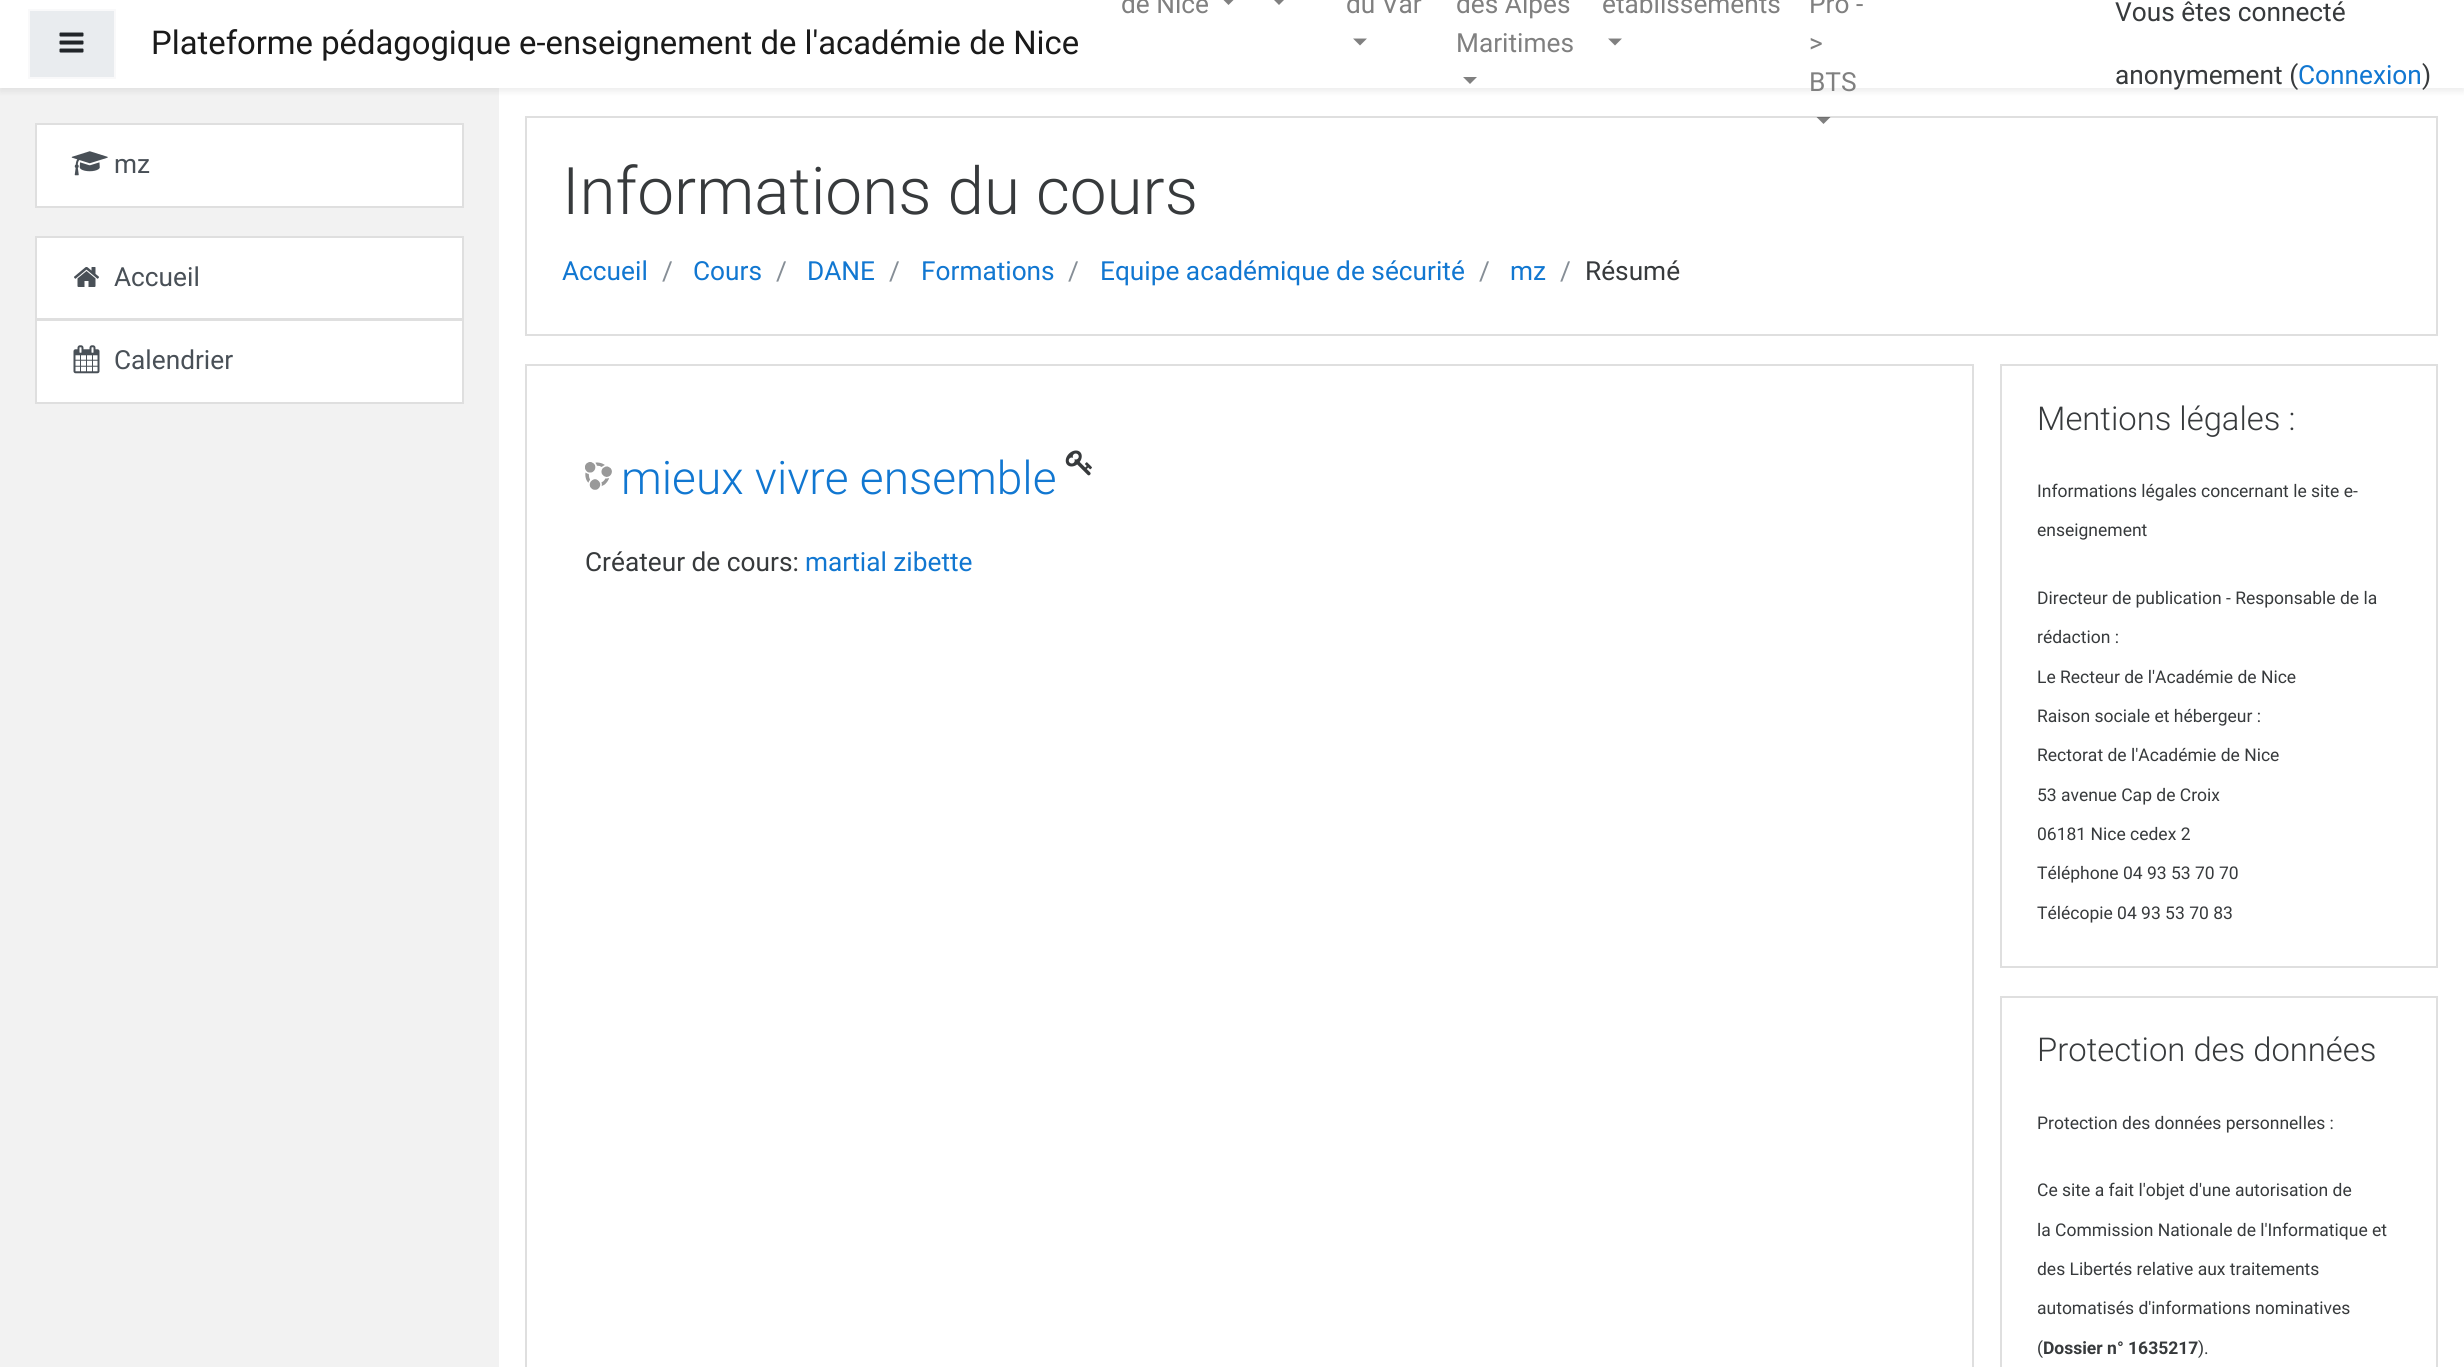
#include <cairo.h>
#include <math.h>
#include <stddef.h>


static void round_rect(cairo_t *cr, double x, double y, double w, double h, double r) {
    cairo_new_sub_path(cr);
    cairo_arc(cr, x + w - r, y + h - r, r, 0, M_PI / 2);
    cairo_arc(cr, x + r, y + h - r, r, M_PI / 2, M_PI);
    cairo_arc(cr, x + r, y + r, r, M_PI, 1.5 * M_PI);
    cairo_arc(cr, x + w - r, y + r, r, 1.5 * M_PI, 2 * M_PI);
    cairo_close_path(cr);
}

static void shadow(cairo_t *cr, double x, double y, double w, double h, double r, double blur, double alpha) {
    cairo_push_group_with_content(cr, CAIRO_CONTENT_ALPHA);
    cairo_set_operator(cr, CAIRO_OPERATOR_SOURCE);
    for (int i = 15; i >= -15 && fmin(w, h) + blur * i / 3 > 0; i -= 2) {
        double e = blur * i / 6;
        cairo_set_source_rgba(cr, 0, 0, 0, alpha * erfc((i - 1) / 8.5) / 2);
        round_rect(cr, x - e, y - e, w + 2 * e, h + 2 * e, fmax(0, fmin(r + e + blur * .6, fmin(w, h) / 2 + e)));
        cairo_fill(cr);
    }
    cairo_pattern_t *soft = cairo_pop_group(cr);
    cairo_mask(cr, soft);
    cairo_pattern_destroy(soft);
}

static void picture(cairo_t *cr, const char *path, double x, double y, double w, double h) {
    cairo_surface_t *image = cairo_image_surface_create_from_png(path);
    cairo_save(cr);
    cairo_set_source_surface(cr, image, x, y);
    cairo_rectangle(cr, x, y, w, h);
    cairo_fill(cr);
    cairo_restore(cr);
    cairo_surface_destroy(image);
}

int main(void) {
    cairo_surface_t *surface = cairo_image_surface_create(CAIRO_FORMAT_RGB24, 2464, 1367);
    cairo_t *cr = cairo_create(surface);
    cairo_font_options_t *options = cairo_font_options_create();
    cairo_font_options_set_hint_metrics(options, CAIRO_HINT_METRICS_OFF);
    cairo_font_options_set_hint_style(options, CAIRO_HINT_STYLE_NONE);
    cairo_set_font_options(cr, options);
    cairo_set_miter_limit(cr, 4);
    cairo_set_source_rgb(cr, 1, 1, 1);
    cairo_paint(cr);
    cairo_set_source_rgb(cr, 0.949, 0.949, 0.949);
    cairo_rectangle(cr, 0, 88, 499, 1279);
    cairo_fill(cr);
    cairo_set_source_rgb(cr, 0, 0, 0);
    shadow(cr, 0, 4, 2464, 87, 0, 3.5, 0.08);
    cairo_set_source_rgb(cr, 1, 1, 1);
    cairo_rectangle(cr, 0, 0, 2464, 88);
    cairo_fill(cr);
    cairo_set_source_rgb(cr, 0.914, 0.925, 0.937);
    cairo_rectangle(cr, 29, 10, 86, 68);
    cairo_fill_preserve(cr);
    cairo_set_source_rgb(cr, 0.973, 0.976, 0.98);
    cairo_stroke(cr);
    picture(cr, "img1.png", 59, 32, 25, 21);
    cairo_select_font_face(cr, "Roboto", CAIRO_FONT_SLANT_NORMAL, CAIRO_FONT_WEIGHT_NORMAL);
    cairo_set_font_size(cr, 32.8);
    cairo_set_source_rgb(cr, 0.102, 0.102, 0.102);
    cairo_move_to(cr, 151, 54);
    cairo_show_text(cr, "Plateforme pédagogique e-enseignement de l'académie de Nice");
    cairo_set_font_size(cr, 26.25);
    cairo_set_source_rgb(cr, 0.502, 0.502, 0.502);
    cairo_move_to(cr, 1121, 13);
    cairo_show_text(cr, "de Nice");
    cairo_new_path(cr);
    cairo_move_to(cr, 1221.5, -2);
    cairo_line_to(cr, 1235.5, -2);
    cairo_line_to(cr, 1228.5, 5);
    cairo_close_path(cr);
    cairo_move_to(cr, 1272, -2);
    cairo_line_to(cr, 1286, -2);
    cairo_line_to(cr, 1279, 5);
    cairo_close_path(cr);
    cairo_fill(cr);
    cairo_move_to(cr, 1346, 13);
    cairo_show_text(cr, "du Var");
    cairo_new_path(cr);
    cairo_move_to(cr, 1353, 38.5);
    cairo_line_to(cr, 1367, 38.5);
    cairo_line_to(cr, 1360, 45.5);
    cairo_close_path(cr);
    cairo_fill(cr);
    cairo_move_to(cr, 1456, 13);
    cairo_show_text(cr, "des Alpes");
    cairo_move_to(cr, 1456, 52);
    cairo_show_text(cr, "Maritimes");
    cairo_new_path(cr);
    cairo_move_to(cr, 1463, 77);
    cairo_line_to(cr, 1477, 77);
    cairo_line_to(cr, 1470, 84);
    cairo_close_path(cr);
    cairo_fill(cr);
    cairo_move_to(cr, 1602, 13);
    cairo_show_text(cr, "établissements");
    cairo_new_path(cr);
    cairo_move_to(cr, 1608, 38.5);
    cairo_line_to(cr, 1622, 38.5);
    cairo_line_to(cr, 1615, 45.5);
    cairo_close_path(cr);
    cairo_fill(cr);
    cairo_move_to(cr, 1809, 13);
    cairo_show_text(cr, "Pro -");
    cairo_move_to(cr, 1809, 52);
    cairo_show_text(cr, ">");
    cairo_move_to(cr, 1809, 91);
    cairo_show_text(cr, "BTS");
    cairo_rectangle(cr, 526, 117, 1911, 218);
    cairo_set_source_rgb(cr, 0.875, 0.875, 0.875);
    cairo_stroke(cr);
    cairo_set_source_rgba(cr, 0, 0, 0, 0.5);
    cairo_new_path(cr);
    cairo_move_to(cr, 1816.5, 117);
    cairo_line_to(cr, 1830.5, 117);
    cairo_line_to(cr, 1823.5, 124);
    cairo_close_path(cr);
    cairo_fill(cr);
    cairo_set_source_rgb(cr, 0.216, 0.227, 0.235);
    cairo_move_to(cr, 2115, 21);
    cairo_show_text(cr, "Vous êtes connecté");
    cairo_move_to(cr, 2115, 84);
    cairo_show_text(cr, "anonymement (");
    cairo_set_source_rgb(cr, 0.067, 0.467, 0.82);
    cairo_move_to(cr, 2298, 84);
    cairo_show_text(cr, "Connexion");
    cairo_set_source_rgb(cr, 0.216, 0.227, 0.235);
    cairo_move_to(cr, 2422, 84);
    cairo_show_text(cr, ")");
    cairo_set_source_rgb(cr, 1, 1, 1);
    cairo_rectangle(cr, 36, 124, 427, 83);
    cairo_fill_preserve(cr);
    cairo_set_source_rgb(cr, 0.875, 0.875, 0.875);
    cairo_stroke(cr);
    picture(cr, "img2.png", 71, 151, 37, 25);
    cairo_set_source_rgb(cr, 0.286, 0.314, 0.341);
    cairo_move_to(cr, 114, 173);
    cairo_show_text(cr, "mz");
    cairo_set_source_rgb(cr, 1, 1, 1);
    cairo_rectangle(cr, 36, 237, 427, 82);
    cairo_fill_preserve(cr);
    cairo_set_source_rgb(cr, 0.875, 0.875, 0.875);
    cairo_stroke(cr);
    picture(cr, "img3.png", 74, 267, 25, 20);
    cairo_set_source_rgb(cr, 0.286, 0.314, 0.341);
    cairo_move_to(cr, 114, 286);
    cairo_show_text(cr, "Accueil");
    cairo_set_source_rgb(cr, 1, 1, 1);
    cairo_rectangle(cr, 36, 320, 427, 83);
    cairo_fill_preserve(cr);
    cairo_set_source_rgb(cr, 0.875, 0.875, 0.875);
    cairo_stroke(cr);
    picture(cr, "img4.png", 73, 345, 27, 29);
    cairo_set_source_rgb(cr, 0.286, 0.314, 0.341);
    cairo_move_to(cr, 114, 369);
    cairo_show_text(cr, "Calendrier");
    cairo_select_font_face(cr, "Roboto Light", CAIRO_FONT_SLANT_NORMAL, CAIRO_FONT_WEIGHT_NORMAL);
    cairo_set_font_size(cr, 65.6);
    cairo_set_source_rgb(cr, 0.216, 0.227, 0.235);
    cairo_move_to(cr, 562, 214);
    cairo_show_text(cr, "Informations du cours");
    cairo_select_font_face(cr, "Roboto", CAIRO_FONT_SLANT_NORMAL, CAIRO_FONT_WEIGHT_NORMAL);
    cairo_set_font_size(cr, 26.25);
    cairo_set_source_rgb(cr, 0.067, 0.467, 0.82);
    cairo_move_to(cr, 562, 280);
    cairo_show_text(cr, "Accueil");
    cairo_set_source_rgb(cr, 0.525, 0.557, 0.588);
    cairo_move_to(cr, 662, 280);
    cairo_show_text(cr, "/");
    cairo_set_source_rgb(cr, 0.067, 0.467, 0.82);
    cairo_move_to(cr, 693, 280);
    cairo_show_text(cr, "Cours");
    cairo_set_source_rgb(cr, 0.525, 0.557, 0.588);
    cairo_move_to(cr, 776, 280);
    cairo_show_text(cr, "/");
    cairo_set_source_rgb(cr, 0.067, 0.467, 0.82);
    cairo_move_to(cr, 807, 280);
    cairo_show_text(cr, "DANE");
    cairo_set_source_rgb(cr, 0.525, 0.557, 0.588);
    cairo_move_to(cr, 889, 280);
    cairo_show_text(cr, "/");
    cairo_set_source_rgb(cr, 0.067, 0.467, 0.82);
    cairo_move_to(cr, 921, 280);
    cairo_show_text(cr, "Formations");
    cairo_set_source_rgb(cr, 0.525, 0.557, 0.588);
    cairo_move_to(cr, 1068, 280);
    cairo_show_text(cr, "/");
    cairo_set_source_rgb(cr, 0.067, 0.467, 0.82);
    cairo_move_to(cr, 1100, 280);
    cairo_show_text(cr, "Equipe académique de sécurité");
    cairo_set_source_rgb(cr, 0.525, 0.557, 0.588);
    cairo_move_to(cr, 1479, 280);
    cairo_show_text(cr, "/");
    cairo_set_source_rgb(cr, 0.067, 0.467, 0.82);
    cairo_move_to(cr, 1510, 280);
    cairo_show_text(cr, "mz");
    cairo_set_source_rgb(cr, 0.525, 0.557, 0.588);
    cairo_move_to(cr, 1560, 280);
    cairo_show_text(cr, "/");
    cairo_set_source_rgb(cr, 0.216, 0.227, 0.235);
    cairo_move_to(cr, 1585, 280);
    cairo_show_text(cr, "Résumé");
    cairo_rectangle(cr, 526, 365, 1447, 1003);
    cairo_set_source_rgb(cr, 0.875, 0.875, 0.875);
    cairo_stroke(cr);
    picture(cr, "img5.png", 585, 462, 27, 28);
    cairo_select_font_face(cr, "Roboto Light", CAIRO_FONT_SLANT_NORMAL, CAIRO_FONT_WEIGHT_NORMAL);
    cairo_set_font_size(cr, 46);
    cairo_set_source_rgb(cr, 0.067, 0.467, 0.82);
    cairo_move_to(cr, 621, 494);
    cairo_show_text(cr, "mieux vivre ensemble");
    picture(cr, "img6.png", 1065, 450, 27, 26);
    cairo_select_font_face(cr, "Roboto", CAIRO_FONT_SLANT_NORMAL, CAIRO_FONT_WEIGHT_NORMAL);
    cairo_set_font_size(cr, 26.25);
    cairo_set_source_rgb(cr, 0.216, 0.227, 0.235);
    cairo_move_to(cr, 585, 571);
    cairo_show_text(cr, "Créateur de cours:");
    cairo_set_source_rgb(cr, 0.067, 0.467, 0.82);
    cairo_move_to(cr, 805, 571);
    cairo_show_text(cr, "martial zibette");
    cairo_rectangle(cr, 2001, 365, 436, 602);
    cairo_set_source_rgb(cr, 0.875, 0.875, 0.875);
    cairo_stroke(cr);
    cairo_select_font_face(cr, "Roboto Light", CAIRO_FONT_SLANT_NORMAL, CAIRO_FONT_WEIGHT_NORMAL);
    cairo_set_font_size(cr, 32.8);
    cairo_set_source_rgb(cr, 0.216, 0.227, 0.235);
    cairo_move_to(cr, 2037, 430);
    cairo_show_text(cr, "Mentions légales :");
    cairo_select_font_face(cr, "Roboto", CAIRO_FONT_SLANT_NORMAL, CAIRO_FONT_WEIGHT_NORMAL);
    cairo_set_font_size(cr, 17.5);
    cairo_move_to(cr, 2037, 497);
    cairo_show_text(cr, "Informations légales concernant le site e-");
    cairo_move_to(cr, 2037, 536);
    cairo_show_text(cr, "enseignement");
    cairo_move_to(cr, 2037, 604);
    cairo_show_text(cr, "Directeur de publication - Responsable de la");
    cairo_move_to(cr, 2037, 643);
    cairo_show_text(cr, "rédaction :");
    cairo_move_to(cr, 2037, 683);
    cairo_show_text(cr, "Le Recteur de l'Académie de Nice");
    cairo_move_to(cr, 2037, 722);
    cairo_show_text(cr, "Raison sociale et hébergeur :");
    cairo_move_to(cr, 2037, 761);
    cairo_show_text(cr, "Rectorat de l'Académie de Nice");
    cairo_move_to(cr, 2037, 801);
    cairo_show_text(cr, "53 avenue Cap de Croix");
    cairo_move_to(cr, 2037, 840);
    cairo_show_text(cr, "06181 Nice cedex 2");
    cairo_move_to(cr, 2037, 879);
    cairo_show_text(cr, "Téléphone 04 93 53 70 70");
    cairo_move_to(cr, 2037, 919);
    cairo_show_text(cr, "Télécopie 04 93 53 70 83");
    cairo_rectangle(cr, 2001, 997, 436, 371);
    cairo_set_source_rgb(cr, 0.875, 0.875, 0.875);
    cairo_stroke(cr);
    cairo_select_font_face(cr, "Roboto Light", CAIRO_FONT_SLANT_NORMAL, CAIRO_FONT_WEIGHT_NORMAL);
    cairo_set_font_size(cr, 32.8);
    cairo_set_source_rgb(cr, 0.216, 0.227, 0.235);
    cairo_move_to(cr, 2037, 1061);
    cairo_show_text(cr, "Protection des données");
    cairo_select_font_face(cr, "Roboto", CAIRO_FONT_SLANT_NORMAL, CAIRO_FONT_WEIGHT_NORMAL);
    cairo_set_font_size(cr, 17.5);
    cairo_move_to(cr, 2037, 1129);
    cairo_show_text(cr, "Protection des données personnelles :");
    cairo_move_to(cr, 2037, 1196);
    cairo_show_text(cr, "Ce site a fait l'objet d'une autorisation de");
    cairo_move_to(cr, 2037, 1236);
    cairo_show_text(cr, "la Commission Nationale de l'Informatique et");
    cairo_move_to(cr, 2037, 1275);
    cairo_show_text(cr, "des Libertés relative aux traitements");
    cairo_move_to(cr, 2037, 1314);
    cairo_show_text(cr, "automatisés d'informations nominatives");
    cairo_move_to(cr, 2037, 1354);
    cairo_show_text(cr, "(");
    cairo_select_font_face(cr, "Roboto", CAIRO_FONT_SLANT_NORMAL, CAIRO_FONT_WEIGHT_BOLD);
    cairo_move_to(cr, 2043, 1354);
    cairo_show_text(cr, "Dossier n° 1635217");
    cairo_select_font_face(cr, "Roboto", CAIRO_FONT_SLANT_NORMAL, CAIRO_FONT_WEIGHT_NORMAL);
    cairo_move_to(cr, 2198, 1354);
    cairo_show_text(cr, ").");
    cairo_surface_write_to_png(surface, "page.png");
    cairo_font_options_destroy(options);
    cairo_destroy(cr);
    cairo_surface_destroy(surface);
    return 0;
}
